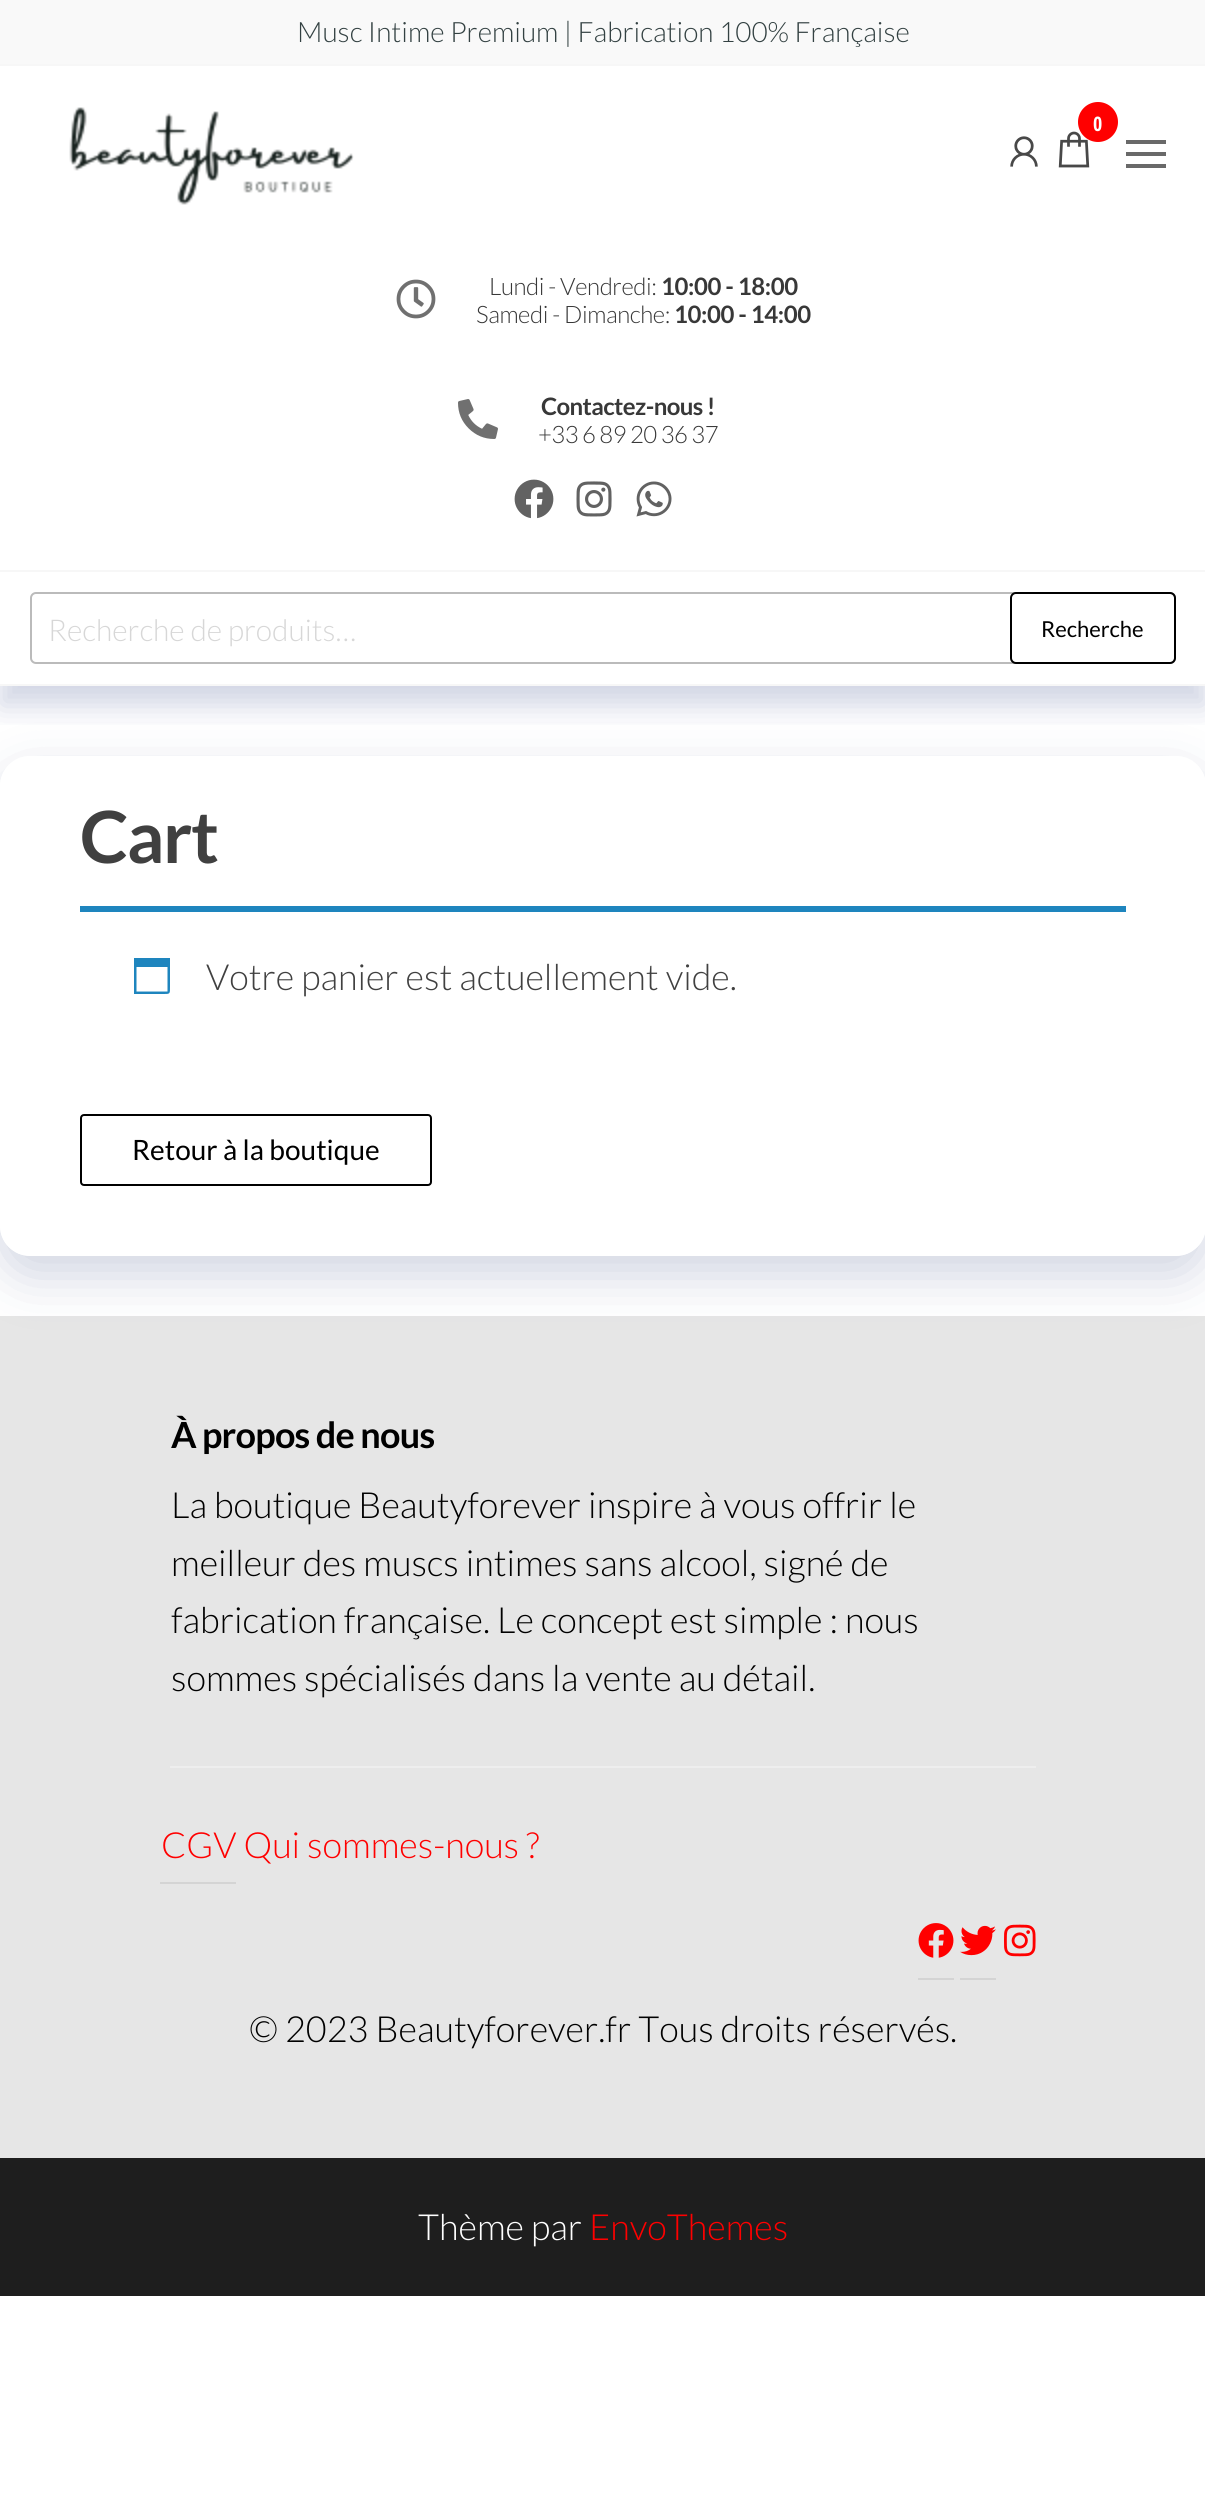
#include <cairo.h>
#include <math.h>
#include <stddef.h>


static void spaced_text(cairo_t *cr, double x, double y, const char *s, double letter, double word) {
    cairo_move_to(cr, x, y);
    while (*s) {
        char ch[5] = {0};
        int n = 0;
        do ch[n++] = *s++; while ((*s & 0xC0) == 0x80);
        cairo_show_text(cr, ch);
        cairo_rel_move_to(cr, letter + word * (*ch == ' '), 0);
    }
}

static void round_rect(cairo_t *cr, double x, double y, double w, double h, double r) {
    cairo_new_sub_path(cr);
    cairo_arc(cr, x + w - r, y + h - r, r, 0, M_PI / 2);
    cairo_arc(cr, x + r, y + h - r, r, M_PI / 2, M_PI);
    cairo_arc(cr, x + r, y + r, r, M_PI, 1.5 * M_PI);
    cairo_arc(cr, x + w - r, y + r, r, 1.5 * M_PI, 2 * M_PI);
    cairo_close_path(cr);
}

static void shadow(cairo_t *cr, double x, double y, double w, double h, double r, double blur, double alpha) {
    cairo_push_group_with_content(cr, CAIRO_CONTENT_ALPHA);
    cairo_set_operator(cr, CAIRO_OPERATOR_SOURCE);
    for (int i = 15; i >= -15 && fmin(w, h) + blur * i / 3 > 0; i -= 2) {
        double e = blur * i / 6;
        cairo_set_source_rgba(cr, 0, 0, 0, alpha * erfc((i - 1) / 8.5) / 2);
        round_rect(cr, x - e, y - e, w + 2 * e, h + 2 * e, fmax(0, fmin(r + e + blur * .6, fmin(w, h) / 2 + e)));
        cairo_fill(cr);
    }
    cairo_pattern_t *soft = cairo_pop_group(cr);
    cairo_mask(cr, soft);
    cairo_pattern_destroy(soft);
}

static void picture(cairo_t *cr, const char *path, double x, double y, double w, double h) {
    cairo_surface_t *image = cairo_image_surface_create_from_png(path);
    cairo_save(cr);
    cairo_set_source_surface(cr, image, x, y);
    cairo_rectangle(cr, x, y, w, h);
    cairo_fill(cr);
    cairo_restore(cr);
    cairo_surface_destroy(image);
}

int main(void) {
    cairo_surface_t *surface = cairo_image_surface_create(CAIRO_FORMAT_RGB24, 1205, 2495);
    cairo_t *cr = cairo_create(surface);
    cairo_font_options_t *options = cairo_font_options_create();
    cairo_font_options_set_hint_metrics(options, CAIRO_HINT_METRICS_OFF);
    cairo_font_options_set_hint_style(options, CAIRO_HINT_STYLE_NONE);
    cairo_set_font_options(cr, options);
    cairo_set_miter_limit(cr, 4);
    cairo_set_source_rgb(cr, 1, 1, 1);
    cairo_paint(cr);
    cairo_set_source_rgb(cr, 0.976, 0.976, 0.976);
    cairo_rectangle(cr, 0, 0, 1205, 64);
    cairo_fill(cr);
    cairo_set_source_rgb(cr, 0.965, 0.965, 0.965);
    cairo_rectangle(cr, 0, 64, 1205, 2);
    cairo_fill(cr);
    cairo_select_font_face(cr, "Lato Light", CAIRO_FONT_SLANT_NORMAL, CAIRO_FONT_WEIGHT_NORMAL);
    cairo_set_font_size(cr, 28);
    cairo_set_source_rgb(cr, 0.2, 0.255, 0.259);
    cairo_move_to(cr, 297, 42);
    cairo_show_text(cr, "Musc Intime Premium | Fabrication 100% Française");
    cairo_set_source_rgb(cr, 0.965, 0.965, 0.965);
    cairo_rectangle(cr, 0, 570, 1205, 2);
    cairo_fill(cr);
    picture(cr, "img1.png", 69, 107, 285, 98);
    picture(cr, "img2.png", 1058, 131, 32, 37);
    cairo_set_source_rgb(cr, 1, 0, 0);
    cairo_arc(cr, 1098, 122, 20, 0, 2 * M_PI);
    cairo_fill(cr);
    cairo_select_font_face(cr, "Open Sans Condensed", CAIRO_FONT_SLANT_NORMAL, CAIRO_FONT_WEIGHT_BOLD);
    cairo_set_font_size(cr, 20);
    cairo_set_source_rgb(cr, 1, 1, 1);
    cairo_move_to(cr, 1093, 131);
    cairo_show_text(cr, "0");
    picture(cr, "img3.png", 1010, 136, 28, 31);
    cairo_set_source_rgb(cr, 0.412, 0.412, 0.412);
    cairo_rectangle(cr, 1126, 152, 40, 4);
    cairo_fill(cr);
    cairo_rectangle(cr, 1126, 140, 40, 4);
    cairo_fill(cr);
    cairo_rectangle(cr, 1126, 164, 40, 4);
    cairo_fill(cr);
    picture(cr, "img4.png", 396, 279, 40, 40);
    cairo_select_font_face(cr, "Lato Light", CAIRO_FONT_SLANT_NORMAL, CAIRO_FONT_WEIGHT_NORMAL);
    cairo_set_font_size(cr, 24);
    cairo_set_source_rgb(cr, 0.22, 0.22, 0.22);
    spaced_text(cr, 489, 295, "Lundi - Vendredi:", -0.4, 0);
    cairo_select_font_face(cr, "Lato", CAIRO_FONT_SLANT_NORMAL, CAIRO_FONT_WEIGHT_BOLD);
    spaced_text(cr, 661, 295, "10:00 - 18:00", -0.4, 0);
    cairo_select_font_face(cr, "Lato Light", CAIRO_FONT_SLANT_NORMAL, CAIRO_FONT_WEIGHT_NORMAL);
    spaced_text(cr, 476, 323, "Samedi - Dimanche:", -0.4, 0);
    cairo_select_font_face(cr, "Lato", CAIRO_FONT_SLANT_NORMAL, CAIRO_FONT_WEIGHT_BOLD);
    spaced_text(cr, 674, 323, "10:00 - 14:00", -0.4, 0);
    picture(cr, "img5.png", 458, 399, 40, 40);
    spaced_text(cr, 541, 415, "Contactez-nous !", -0.6, 0);
    cairo_select_font_face(cr, "Lato Light", CAIRO_FONT_SLANT_NORMAL, CAIRO_FONT_WEIGHT_NORMAL);
    spaced_text(cr, 538, 443, "+33 6 89 20 36 37", -0.6, 0);
    picture(cr, "img6.png", 514, 479, 40, 40);
    picture(cr, "img7.png", 576, 481, 36, 36);
    picture(cr, "img8.png", 636, 481, 36, 36);
    cairo_save(cr);
    cairo_rectangle(cr, 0, 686, 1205, 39);
    cairo_clip(cr);
    cairo_set_source_rgb(cr, 0.098, 0.176, 0.471);
    shadow(cr, 0, 592, 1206, 114, 0, 15, 0.2);
    cairo_restore(cr);
    cairo_set_source_rgb(cr, 0.965, 0.965, 0.965);
    cairo_rectangle(cr, 0, 684, 1205, 2);
    cairo_fill(cr);
    round_rect(cr, 31, 593, 1144, 70, 5);
    cairo_set_source_rgb(cr, 0.733, 0.733, 0.733);
    cairo_stroke(cr);
    cairo_set_font_size(cr, 30);
    cairo_set_source_rgb(cr, 0.843, 0.843, 0.843);
    cairo_move_to(cr, 48, 641);
    cairo_show_text(cr, "Recherche de produits…");
    round_rect(cr, 1011, 593, 164, 70, 5);
    cairo_set_source_rgb(cr, 0, 0, 0);
    cairo_stroke(cr);
    cairo_select_font_face(cr, "Lato", CAIRO_FONT_SLANT_NORMAL, CAIRO_FONT_WEIGHT_NORMAL);
    cairo_set_font_size(cr, 22);
    cairo_move_to(cr, 1041, 637);
    cairo_show_text(cr, "Recherche");
    cairo_set_source_rgb(cr, 0.902, 0.902, 0.902);
    cairo_rectangle(cr, 0, 1316, 1205, 842);
    cairo_fill(cr);
    cairo_save(cr);
    cairo_set_fill_rule(cr, CAIRO_FILL_RULE_EVEN_ODD);
    cairo_new_path(cr);
    cairo_move_to(cr, 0, 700);
    cairo_line_to(cr, 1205, 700);
    cairo_line_to(cr, 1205, 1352);
    cairo_line_to(cr, 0, 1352);
    cairo_close_path(cr);
    cairo_move_to(cr, 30, 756);
    cairo_line_to(cr, 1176, 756);
    cairo_curve_to(cr, 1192.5, 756, 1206, 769.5, 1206, 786);
    cairo_line_to(cr, 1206, 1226);
    cairo_curve_to(cr, 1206, 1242.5, 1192.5, 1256, 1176, 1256);
    cairo_line_to(cr, 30, 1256);
    cairo_curve_to(cr, 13.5, 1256, 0, 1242.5, 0, 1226);
    cairo_line_to(cr, 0, 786);
    cairo_curve_to(cr, 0, 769.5, 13.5, 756, 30, 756);
    cairo_close_path(cr);
    cairo_clip(cr);
    cairo_set_source_rgb(cr, 0.098, 0.176, 0.431);
    shadow(cr, 0, 776, 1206, 500, 30, 25, 0.2);
    cairo_restore(cr);
    cairo_select_font_face(cr, "Lato", CAIRO_FONT_SLANT_NORMAL, CAIRO_FONT_WEIGHT_BOLD);
    cairo_set_font_size(cr, 72);
    cairo_set_source_rgb(cr, 0.251, 0.251, 0.251);
    spaced_text(cr, 80, 863, "Cart", -1.5, 0);
    cairo_set_source_rgb(cr, 0.118, 0.522, 0.745);
    cairo_rectangle(cr, 80, 906, 1046, 6);
    cairo_fill(cr);
    cairo_new_path(cr);
    cairo_move_to(cr, 167.5, 967);
    cairo_line_to(cr, 136.5, 967);
    cairo_line_to(cr, 136.5, 991.5);
    cairo_line_to(cr, 167.5, 991.5);
    cairo_close_path(cr);
    cairo_move_to(cr, 170, 958);
    cairo_line_to(cr, 170, 986);
    cairo_curve_to(cr, 170, 994.5, 170.5, 994, 162, 994);
    cairo_line_to(cr, 134, 994);
    cairo_line_to(cr, 134, 958);
    cairo_close_path(cr);
    cairo_fill(cr);
    cairo_select_font_face(cr, "Lato Light", CAIRO_FONT_SLANT_NORMAL, CAIRO_FONT_WEIGHT_NORMAL);
    cairo_set_font_size(cr, 36);
    cairo_set_source_rgb(cr, 0.251, 0.251, 0.251);
    cairo_move_to(cr, 206, 990);
    cairo_show_text(cr, "Votre panier est actuellement vide.");
    round_rect(cr, 81, 1115, 350, 70, 3);
    cairo_set_source_rgb(cr, 0, 0, 0);
    cairo_stroke(cr);
    cairo_select_font_face(cr, "Lato", CAIRO_FONT_SLANT_NORMAL, CAIRO_FONT_WEIGHT_NORMAL);
    cairo_set_font_size(cr, 28);
    cairo_move_to(cr, 132, 1160);
    cairo_show_text(cr, "Retour à la boutique");
    cairo_select_font_face(cr, "Lato", CAIRO_FONT_SLANT_NORMAL, CAIRO_FONT_WEIGHT_BOLD);
    cairo_set_font_size(cr, 36);
    spaced_text(cr, 171, 1448, "À propos de nous", -0.75, 0);
    cairo_select_font_face(cr, "Lato Light", CAIRO_FONT_SLANT_NORMAL, CAIRO_FONT_WEIGHT_NORMAL);
    cairo_move_to(cr, 171, 1518);
    cairo_show_text(cr, "La boutique Beautyforever inspire à vous offrir le");
    cairo_move_to(cr, 171, 1576);
    cairo_show_text(cr, "meilleur des muscs intimes sans alcool, signé de");
    cairo_move_to(cr, 171, 1633);
    cairo_show_text(cr, "fabrication française. Le concept est simple : nous");
    cairo_move_to(cr, 171, 1691);
    cairo_show_text(cr, "sommes spécialisés dans la vente au détail.");
    cairo_set_source_rgb(cr, 0.933, 0.933, 0.933);
    cairo_rectangle(cr, 170, 1766, 866, 2);
    cairo_fill(cr);
    cairo_set_source_rgb(cr, 0.831, 0.831, 0.831);
    cairo_rectangle(cr, 160, 1882, 76, 2);
    cairo_fill(cr);
    cairo_set_source_rgb(cr, 1, 0, 0);
    cairo_move_to(cr, 161, 1858);
    cairo_show_text(cr, "CGV Qui sommes-nous ?");
    cairo_set_source_rgb(cr, 0.831, 0.831, 0.831);
    cairo_rectangle(cr, 918, 1978, 36, 2);
    cairo_fill(cr);
    picture(cr, "img9.png", 918, 1923, 36, 35);
    cairo_rectangle(cr, 960, 1978, 36, 2);
    cairo_fill(cr);
    picture(cr, "img10.png", 960, 1925, 36, 31);
    picture(cr, "img11.png", 1004, 1924, 32, 33);
    cairo_set_source_rgb(cr, 0, 0, 0);
    cairo_move_to(cr, 249, 2042);
    cairo_show_text(cr, "© 2023 Beautyforever.fr Tous droits réservés.");
    cairo_set_source_rgb(cr, 0.118, 0.118, 0.118);
    cairo_rectangle(cr, 0, 2158, 1205, 138);
    cairo_fill(cr);
    cairo_set_source_rgb(cr, 1, 1, 1);
    cairo_move_to(cr, 418, 2240);
    cairo_show_text(cr, "Thème par");
    cairo_set_source_rgb(cr, 1, 0, 0);
    cairo_move_to(cr, 589, 2240);
    cairo_show_text(cr, "EnvoThemes");
    cairo_surface_write_to_png(surface, "page.png");
    cairo_font_options_destroy(options);
    cairo_destroy(cr);
    cairo_surface_destroy(surface);
    return 0;
}
